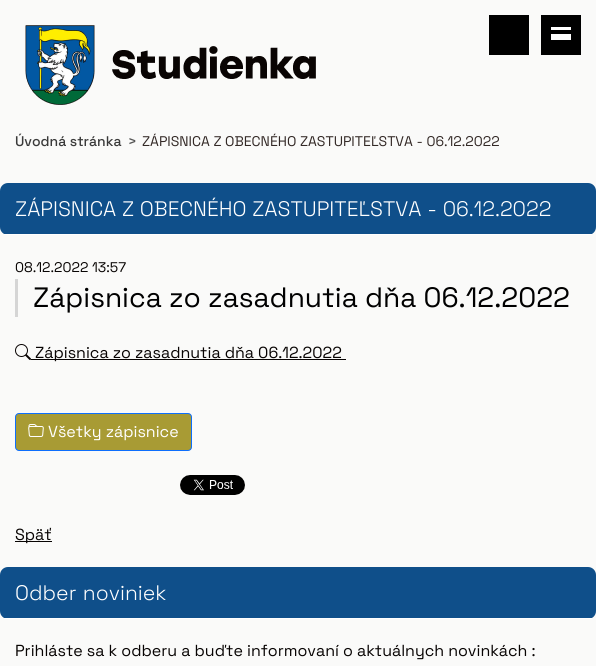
#include <cairo.h>
#include <math.h>
#include <stddef.h>


static void spaced_text(cairo_t *cr, double x, double y, const char *s, double letter, double word) {
    cairo_move_to(cr, x, y);
    while (*s) {
        char ch[5] = {0};
        int n = 0;
        do ch[n++] = *s++; while ((*s & 0xC0) == 0x80);
        cairo_show_text(cr, ch);
        cairo_rel_move_to(cr, letter + word * (*ch == ' '), 0);
    }
}

static void round_rect(cairo_t *cr, double x, double y, double w, double h, double r) {
    cairo_new_sub_path(cr);
    cairo_arc(cr, x + w - r, y + h - r, r, 0, M_PI / 2);
    cairo_arc(cr, x + r, y + h - r, r, M_PI / 2, M_PI);
    cairo_arc(cr, x + r, y + r, r, M_PI, 1.5 * M_PI);
    cairo_arc(cr, x + w - r, y + r, r, 1.5 * M_PI, 2 * M_PI);
    cairo_close_path(cr);
}

static void picture(cairo_t *cr, const char *path, double x, double y, double w, double h) {
    cairo_surface_t *image = cairo_image_surface_create_from_png(path);
    cairo_save(cr);
    cairo_set_source_surface(cr, image, x, y);
    cairo_rectangle(cr, x, y, w, h);
    cairo_fill(cr);
    cairo_restore(cr);
    cairo_surface_destroy(image);
}

int main(void) {
    cairo_surface_t *surface = cairo_image_surface_create(CAIRO_FORMAT_RGB24, 596, 666);
    cairo_t *cr = cairo_create(surface);
    cairo_font_options_t *options = cairo_font_options_create();
    cairo_font_options_set_hint_metrics(options, CAIRO_HINT_METRICS_OFF);
    cairo_font_options_set_hint_style(options, CAIRO_HINT_STYLE_NONE);
    cairo_set_font_options(cr, options);
    cairo_set_miter_limit(cr, 4);
    cairo_set_source_rgb(cr, 0.98, 0.98, 0.976);
    cairo_paint(cr);
    picture(cr, "img1.png", 25, 25, 291, 80);
    cairo_set_source_rgb(cr, 0, 0, 0);
    cairo_rectangle(cr, 489, 15, 40, 40);
    cairo_fill(cr);
    cairo_rectangle(cr, 541, 15, 40, 40);
    cairo_fill(cr);
    cairo_set_source_rgb(cr, 1, 1, 1);
    cairo_rectangle(cr, 551, 27, 20, 3);
    cairo_fill(cr);
    cairo_rectangle(cr, 551, 34, 20, 6);
    cairo_fill(cr);
    cairo_select_font_face(cr, "Space Grotesk Medium", CAIRO_FONT_SLANT_NORMAL, CAIRO_FONT_WEIGHT_NORMAL);
    cairo_set_font_size(cr, 14);
    cairo_set_source_rgb(cr, 0.227, 0.227, 0.227);
    cairo_move_to(cr, 15, 146);
    cairo_show_text(cr, "Úvodná stránka");
    cairo_set_source_rgb(cr, 0.333, 0.333, 0.333);
    cairo_move_to(cr, 128, 146);
    cairo_show_text(cr, ">");
    cairo_select_font_face(cr, "Space Grotesk", CAIRO_FONT_SLANT_NORMAL, CAIRO_FONT_WEIGHT_NORMAL);
    cairo_set_source_rgb(cr, 0.2, 0.161, 0.149);
    cairo_move_to(cr, 142, 146);
    cairo_show_text(cr, "ZÁPISNICA Z OBECNÉHO ZASTUPITEĽSTVA - 06.12.2022");
    cairo_set_source_rgb(cr, 0.059, 0.31, 0.541);
    round_rect(cr, 0, 183, 596, 52, 8);
    cairo_fill(cr);
    cairo_set_source_rgb(cr, 1, 1, 1);
    cairo_rectangle(cr, 4, 234, 588, 1);
    cairo_fill(cr);
    cairo_select_font_face(cr, "Space Grotesk Light", CAIRO_FONT_SLANT_NORMAL, CAIRO_FONT_WEIGHT_NORMAL);
    cairo_set_font_size(cr, 21);
    spaced_text(cr, 15, 216, "ZÁPISNICA Z OBECNÉHO ZASTUPITEĽSTVA - 06.12.2022", 0, 0.25);
    cairo_select_font_face(cr, "Space Grotesk", CAIRO_FONT_SLANT_NORMAL, CAIRO_FONT_WEIGHT_NORMAL);
    cairo_set_font_size(cr, 14);
    cairo_set_source_rgb(cr, 0.035, 0.016, 0.012);
    cairo_move_to(cr, 15, 272);
    cairo_show_text(cr, "08.12.2022 13:57");
    cairo_set_source_rgb(cr, 0.835, 0.835, 0.835);
    cairo_rectangle(cr, 15, 279, 3, 38);
    cairo_fill(cr);
    cairo_set_font_size(cr, 28);
    cairo_set_source_rgb(cr, 0, 0, 0);
    cairo_move_to(cr, 33, 307);
    cairo_show_text(cr, "Zápisnica zo zasadnutia dňa 06.12.2022");
    picture(cr, "img2.png", 15, 344, 16, 16);
    cairo_set_source_rgb(cr, 0.035, 0.016, 0.012);
    cairo_rectangle(cr, 31, 359, 315, 1);
    cairo_fill(cr);
    cairo_set_font_size(cr, 16);
    cairo_move_to(cr, 35, 358);
    cairo_show_text(cr, "Zápisnica zo zasadnutia dňa 06.12.2022");
    cairo_set_source_rgb(cr, 0.659, 0.608, 0.204);
    round_rect(cr, 15.5, 413.5, 176, 37, 3.5);
    cairo_fill_preserve(cr);
    cairo_set_source_rgb(cr, 0.051, 0.431, 0.992);
    cairo_set_line_width(cr, 1);
    cairo_stroke(cr);
    picture(cr, "img3.png", 28, 424, 16, 13);
    cairo_set_source_rgb(cr, 1, 1, 1);
    cairo_move_to(cr, 48, 437);
    cairo_show_text(cr, "Všetky zápisnice");
    picture(cr, "img4.png", 180, 475, 65, 20);
    cairo_set_source_rgb(cr, 0.035, 0.016, 0.012);
    cairo_rectangle(cr, 15, 541, 37, 1);
    cairo_fill(cr);
    cairo_move_to(cr, 15, 540);
    cairo_show_text(cr, "Späť");
    cairo_set_source_rgb(cr, 0.059, 0.31, 0.541);
    round_rect(cr, 0, 567, 596, 52, 8);
    cairo_fill(cr);
    cairo_set_source_rgb(cr, 1, 1, 1);
    cairo_rectangle(cr, 4, 618, 588, 1);
    cairo_fill(cr);
    cairo_select_font_face(cr, "Space Grotesk Light", CAIRO_FONT_SLANT_NORMAL, CAIRO_FONT_WEIGHT_NORMAL);
    cairo_set_font_size(cr, 21);
    spaced_text(cr, 15, 600, "Odber noviniek", 0, 1);
    cairo_select_font_face(cr, "Space Grotesk", CAIRO_FONT_SLANT_NORMAL, CAIRO_FONT_WEIGHT_NORMAL);
    cairo_set_font_size(cr, 16);
    cairo_set_source_rgb(cr, 0.035, 0.016, 0.012);
    cairo_move_to(cr, 15, 656);
    cairo_show_text(cr, "Prihláste sa k odberu a buďte informovaní o aktuálnych novinkách :");
    cairo_surface_write_to_png(surface, "page.png");
    cairo_font_options_destroy(options);
    cairo_destroy(cr);
    cairo_surface_destroy(surface);
    return 0;
}
